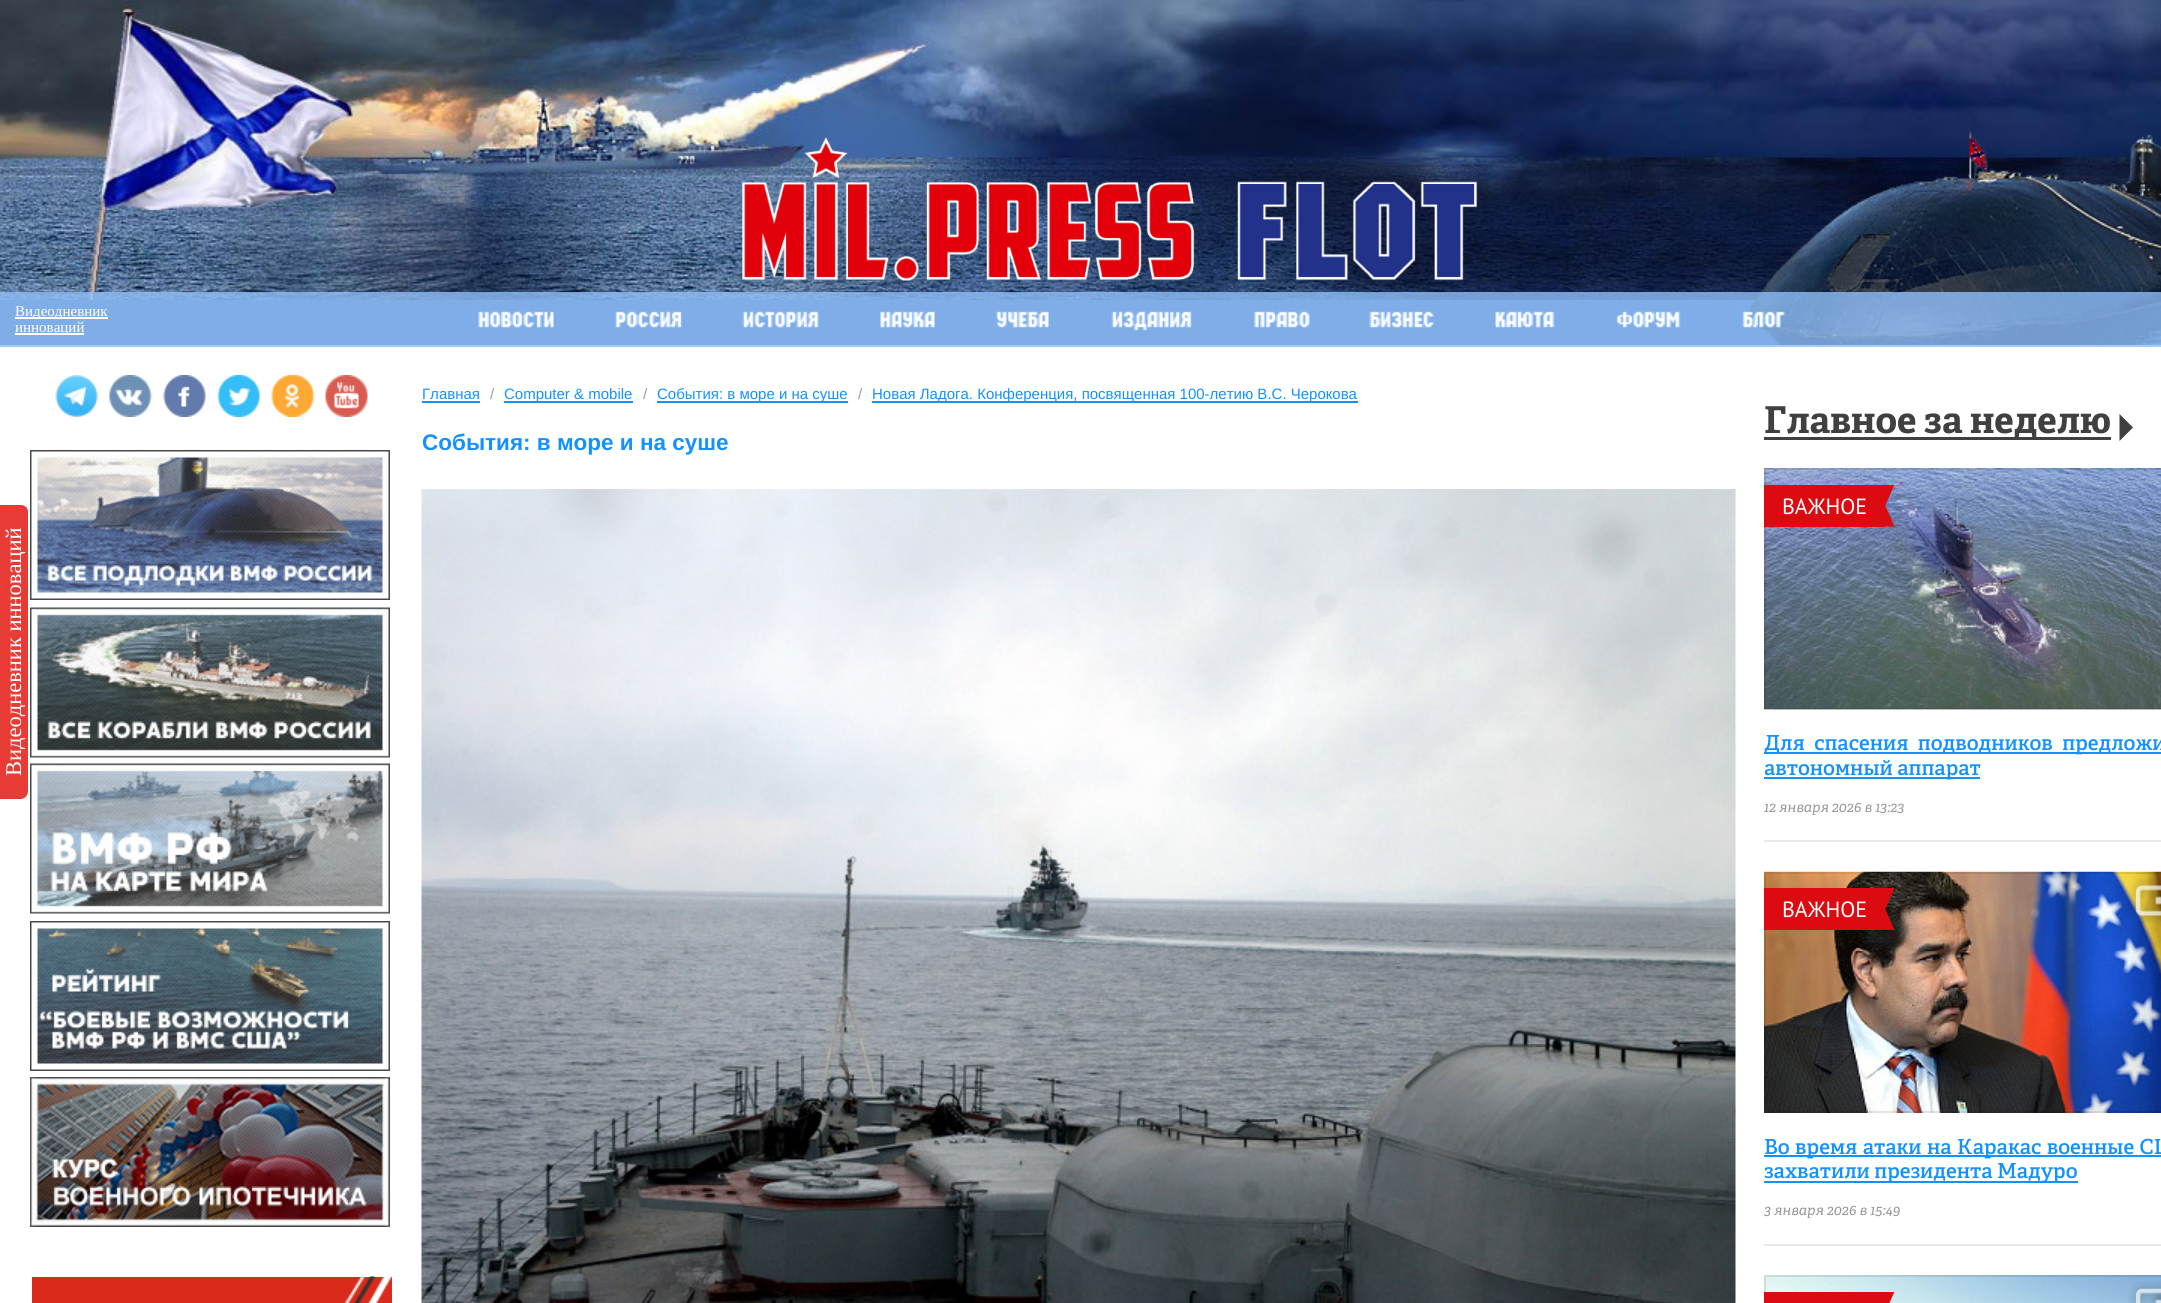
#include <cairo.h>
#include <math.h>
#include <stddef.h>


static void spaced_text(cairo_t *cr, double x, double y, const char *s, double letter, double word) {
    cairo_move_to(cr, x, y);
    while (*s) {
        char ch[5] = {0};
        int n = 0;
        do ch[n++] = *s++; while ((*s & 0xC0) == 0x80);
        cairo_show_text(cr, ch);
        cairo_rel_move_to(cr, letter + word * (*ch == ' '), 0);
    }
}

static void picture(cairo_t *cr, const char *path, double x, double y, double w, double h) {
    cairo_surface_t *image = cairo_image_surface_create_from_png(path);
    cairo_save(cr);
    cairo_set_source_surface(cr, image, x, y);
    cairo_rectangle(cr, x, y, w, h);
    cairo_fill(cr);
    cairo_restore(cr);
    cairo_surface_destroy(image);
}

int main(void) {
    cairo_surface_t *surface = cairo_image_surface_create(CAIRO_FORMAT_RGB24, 2161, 1303);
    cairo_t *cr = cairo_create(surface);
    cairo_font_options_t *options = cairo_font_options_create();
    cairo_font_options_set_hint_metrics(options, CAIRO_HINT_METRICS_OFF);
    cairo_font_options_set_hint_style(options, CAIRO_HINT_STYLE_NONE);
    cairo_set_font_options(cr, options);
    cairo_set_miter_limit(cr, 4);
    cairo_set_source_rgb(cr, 1, 1, 1);
    cairo_paint(cr);
    cairo_set_source_rgb(cr, 0.255, 0.412, 0.651);
    cairo_rectangle(cr, 0, 300, 1778, 45);
    cairo_fill(cr);
    picture(cr, "img1.png", 0, 0, 2161, 300);
    picture(cr, "img2.png", 1747, 130, 414, 215);
    picture(cr, "img3.png", 741, 137, 737, 144);
    cairo_set_source_rgba(cr, 0.557, 0.745, 0.973, 0.8);
    cairo_rectangle(cr, 0, 292, 2161, 55);
    cairo_fill(cr);
    cairo_set_source_rgb(cr, 1, 1, 1);
    cairo_rectangle(cr, 15, 317, 93, 2);
    cairo_fill(cr);
    cairo_select_font_face(cr, "Liberation Serif", CAIRO_FONT_SLANT_NORMAL, CAIRO_FONT_WEIGHT_NORMAL);
    cairo_set_font_size(cr, 15);
    cairo_move_to(cr, 15, 316);
    cairo_show_text(cr, "Видеодневник");
    cairo_rectangle(cr, 15, 333, 69, 2);
    cairo_fill(cr);
    cairo_move_to(cr, 15, 332);
    cairo_show_text(cr, "инноваций");
    picture(cr, "img4.png", 478, 311, 76, 17);
    picture(cr, "img5.png", 615, 311, 67, 17);
    picture(cr, "img6.png", 742, 311, 77, 17);
    picture(cr, "img7.png", 880, 311, 55, 17);
    picture(cr, "img8.png", 996, 311, 53, 17);
    picture(cr, "img9.png", 1111, 311, 81, 20);
    picture(cr, "img10.png", 1254, 311, 56, 17);
    picture(cr, "img11.png", 1369, 311, 65, 17);
    picture(cr, "img12.png", 1495, 311, 60, 17);
    picture(cr, "img13.png", 1616, 311, 65, 17);
    picture(cr, "img14.png", 1742, 311, 44, 17);
    picture(cr, "img15.png", 55, 375, 43, 42);
    picture(cr, "img16.png", 109, 375, 43, 42);
    picture(cr, "img17.png", 163, 375, 43, 42);
    picture(cr, "img18.png", 217, 375, 43, 42);
    picture(cr, "img19.png", 271, 375, 43, 42);
    picture(cr, "img20.png", 325, 375, 43, 42);
    picture(cr, "img21.png", 30, 450, 360, 150);
    picture(cr, "img22.png", 30, 607, 360, 151);
    picture(cr, "img23.png", 30, 763, 360, 151);
    picture(cr, "img24.png", 30, 921, 360, 150);
    picture(cr, "img25.png", 30, 1077, 360, 150);
    cairo_set_source_rgb(cr, 0.855, 0.165, 0.106);
    cairo_rectangle(cr, 32, 1277, 360, 26);
    cairo_fill(cr);
    picture(cr, "img26.png", 344, 1276, 48, 27);
    cairo_select_font_face(cr, "Liberation Sans", CAIRO_FONT_SLANT_NORMAL, CAIRO_FONT_WEIGHT_NORMAL);
    cairo_set_source_rgb(cr, 0.078, 0.573, 1);
    cairo_move_to(cr, 422, 399);
    cairo_show_text(cr, "Главная");
    cairo_rectangle(cr, 422, 401, 58, 2);
    cairo_fill(cr);
    cairo_set_source_rgb(cr, 0.6, 0.6, 0.6);
    cairo_move_to(cr, 490, 399);
    cairo_show_text(cr, "/");
    cairo_set_source_rgb(cr, 0.078, 0.573, 1);
    cairo_rectangle(cr, 504, 401, 129, 2);
    cairo_fill(cr);
    cairo_move_to(cr, 504, 399);
    cairo_show_text(cr, "Computer & mobile");
    cairo_set_source_rgb(cr, 0.6, 0.6, 0.6);
    cairo_move_to(cr, 643, 399);
    cairo_show_text(cr, "/");
    cairo_set_source_rgb(cr, 0.078, 0.573, 1);
    cairo_rectangle(cr, 657, 401, 191, 2);
    cairo_fill(cr);
    cairo_move_to(cr, 657, 399);
    cairo_show_text(cr, "События: в море и на суше");
    cairo_set_source_rgb(cr, 0.6, 0.6, 0.6);
    cairo_move_to(cr, 858, 399);
    cairo_show_text(cr, "/");
    cairo_set_source_rgb(cr, 0.078, 0.573, 1);
    cairo_rectangle(cr, 872, 401, 486, 2);
    cairo_fill(cr);
    cairo_move_to(cr, 872, 399);
    cairo_show_text(cr, "Новая Ладога. Конференция, посвященная 100-летию В.С. Черокова");
    cairo_select_font_face(cr, "Liberation Sans", CAIRO_FONT_SLANT_NORMAL, CAIRO_FONT_WEIGHT_BOLD);
    cairo_set_font_size(cr, 22.5);
    cairo_move_to(cr, 422, 450);
    cairo_show_text(cr, "События: в море и на суше");
    picture(cr, "img27.png", 421, 489, 1315, 814);
    cairo_set_source_rgb(cr, 0.251, 0.251, 0.251);
    cairo_rectangle(cr, 1764, 437, 347, 3);
    cairo_fill(cr);
    cairo_select_font_face(cr, "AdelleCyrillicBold", CAIRO_FONT_SLANT_NORMAL, CAIRO_FONT_WEIGHT_BOLD);
    cairo_set_font_size(cr, 37);
    cairo_move_to(cr, 1764, 433);
    cairo_show_text(cr, "Главное за неделю");
    cairo_new_path(cr);
    cairo_move_to(cr, 2119.5, 441);
    cairo_line_to(cr, 2119.5, 414);
    cairo_line_to(cr, 2133, 427.5);
    cairo_close_path(cr);
    cairo_fill(cr);
    cairo_set_source_rgb(cr, 0.914, 0.914, 0.914);
    cairo_rectangle(cr, 1764, 840, 397, 2);
    cairo_fill(cr);
    picture(cr, "img28.png", 1764, 468, 397, 242);
    cairo_rectangle(cr, 1765, 469, 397, 240);
    cairo_set_source_rgba(cr, 0, 0, 0, 0.1);
    cairo_stroke(cr);
    cairo_set_source_rgb(cr, 0.859, 0.043, 0.067);
    cairo_rectangle(cr, 1764, 485, 120, 42);
    cairo_fill(cr);
    cairo_select_font_face(cr, "PT Sans", CAIRO_FONT_SLANT_NORMAL, CAIRO_FONT_WEIGHT_NORMAL);
    cairo_set_font_size(cr, 22);
    cairo_set_source_rgb(cr, 1, 1, 1);
    cairo_move_to(cr, 1782, 514);
    cairo_show_text(cr, "ВАЖНОЕ");
    cairo_save(cr);
    cairo_rectangle(cr, 1884, 485, 11, 21);
    cairo_clip(cr);
    cairo_set_source_rgb(cr, 0.859, 0.043, 0.067);
    cairo_new_path(cr);
    cairo_move_to(cr, 1873.5, 484.5);
    cairo_line_to(cr, 1894.5, 484.5);
    cairo_line_to(cr, 1884, 508.5);
    cairo_close_path(cr);
    cairo_fill(cr);
    cairo_restore(cr);
    cairo_save(cr);
    cairo_rectangle(cr, 1884, 506, 11, 21);
    cairo_clip(cr);
    cairo_set_source_rgb(cr, 0.859, 0.043, 0.067);
    cairo_new_path(cr);
    cairo_move_to(cr, 1894.5, 526.5);
    cairo_line_to(cr, 1873.5, 526.5);
    cairo_line_to(cr, 1884, 502.5);
    cairo_close_path(cr);
    cairo_fill(cr);
    cairo_restore(cr);
    cairo_set_source_rgb(cr, 0.078, 0.573, 1);
    cairo_rectangle(cr, 1764, 752, 397, 2);
    cairo_fill(cr);
    cairo_select_font_face(cr, "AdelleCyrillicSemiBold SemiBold", CAIRO_FONT_SLANT_NORMAL, CAIRO_FONT_WEIGHT_NORMAL);
    cairo_set_font_size(cr, 20.7);
    spaced_text(cr, 1764, 750, "Для спасения подводников предложи", 0, 5);
    cairo_rectangle(cr, 1764, 777, 216, 2);
    cairo_fill(cr);
    cairo_move_to(cr, 1764, 775);
    cairo_show_text(cr, "автономный аппарат");
    cairo_select_font_face(cr, "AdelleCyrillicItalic", CAIRO_FONT_SLANT_ITALIC, CAIRO_FONT_WEIGHT_NORMAL);
    cairo_set_font_size(cr, 14.25);
    cairo_set_source_rgb(cr, 0.6, 0.6, 0.6);
    cairo_move_to(cr, 1764, 812);
    cairo_show_text(cr, "12 января 2026 в 13:23");
    cairo_set_source_rgb(cr, 0.914, 0.914, 0.914);
    cairo_rectangle(cr, 1764, 1244, 397, 2);
    cairo_fill(cr);
    picture(cr, "img29.png", 1764, 871, 397, 242);
    cairo_rectangle(cr, 1765, 873, 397, 239);
    cairo_set_source_rgba(cr, 0, 0, 0, 0.1);
    cairo_stroke(cr);
    cairo_set_source_rgb(cr, 0.859, 0.043, 0.067);
    cairo_rectangle(cr, 1764, 888, 120, 42);
    cairo_fill(cr);
    cairo_select_font_face(cr, "PT Sans", CAIRO_FONT_SLANT_NORMAL, CAIRO_FONT_WEIGHT_NORMAL);
    cairo_set_font_size(cr, 22);
    cairo_set_source_rgb(cr, 1, 1, 1);
    cairo_move_to(cr, 1782, 917);
    cairo_show_text(cr, "ВАЖНОЕ");
    cairo_save(cr);
    cairo_rectangle(cr, 1884, 888, 11, 21);
    cairo_clip(cr);
    cairo_set_source_rgb(cr, 0.859, 0.043, 0.067);
    cairo_new_path(cr);
    cairo_move_to(cr, 1873.5, 888);
    cairo_line_to(cr, 1894.5, 888);
    cairo_line_to(cr, 1884, 912);
    cairo_close_path(cr);
    cairo_fill(cr);
    cairo_restore(cr);
    cairo_save(cr);
    cairo_rectangle(cr, 1884, 909, 11, 21);
    cairo_clip(cr);
    cairo_set_source_rgb(cr, 0.859, 0.043, 0.067);
    cairo_new_path(cr);
    cairo_move_to(cr, 1894.5, 930);
    cairo_line_to(cr, 1873.5, 930);
    cairo_line_to(cr, 1884, 906);
    cairo_close_path(cr);
    cairo_fill(cr);
    cairo_restore(cr);
    picture(cr, "img30.png", 2128, 878, 33, 45);
    cairo_set_source_rgb(cr, 0.078, 0.573, 1);
    cairo_rectangle(cr, 1764, 1155, 397, 2);
    cairo_fill(cr);
    cairo_select_font_face(cr, "AdelleCyrillicSemiBold SemiBold", CAIRO_FONT_SLANT_NORMAL, CAIRO_FONT_WEIGHT_NORMAL);
    cairo_set_font_size(cr, 20.7);
    spaced_text(cr, 1764, 1154, "Во время атаки на Каракас военные СШ", 0, 1);
    cairo_rectangle(cr, 1764, 1181, 314, 2);
    cairo_fill(cr);
    cairo_move_to(cr, 1764, 1178);
    cairo_show_text(cr, "захватили президента Мадуро");
    cairo_select_font_face(cr, "AdelleCyrillicItalic", CAIRO_FONT_SLANT_ITALIC, CAIRO_FONT_WEIGHT_NORMAL);
    cairo_set_font_size(cr, 14.25);
    cairo_set_source_rgb(cr, 0.6, 0.6, 0.6);
    cairo_move_to(cr, 1764, 1215);
    cairo_show_text(cr, "3 января 2026 в 15:49");
    picture(cr, "img31.png", 1764, 1275, 397, 28);
    cairo_rectangle(cr, 1765, 1276, 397, 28);
    cairo_set_source_rgba(cr, 0, 0, 0, 0.1);
    cairo_stroke(cr);
    cairo_set_source_rgb(cr, 0.859, 0.043, 0.067);
    cairo_rectangle(cr, 1764, 1292, 120, 11);
    cairo_fill(cr);
    cairo_save(cr);
    cairo_rectangle(cr, 1884, 1292, 11, 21);
    cairo_clip(cr);
    cairo_new_path(cr);
    cairo_move_to(cr, 1873.5, 1291.5);
    cairo_line_to(cr, 1894.5, 1291.5);
    cairo_line_to(cr, 1884, 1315.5);
    cairo_close_path(cr);
    cairo_fill(cr);
    cairo_restore(cr);
    picture(cr, "img32.png", 2128, 1281, 33, 22);
    cairo_set_source_rgb(cr, 0.91, 0.231, 0.208);
    cairo_new_path(cr);
    cairo_move_to(cr, 0, 799);
    cairo_line_to(cr, 0, 505);
    cairo_line_to(cr, 21, 505);
    cairo_curve_to(cr, 25, 505, 28, 508, 28, 512);
    cairo_line_to(cr, 28, 791);
    cairo_curve_to(cr, 28, 795, 25, 799, 21, 799);
    cairo_close_path(cr);
    cairo_fill(cr);
    cairo_select_font_face(cr, "Liberation Serif", CAIRO_FONT_SLANT_NORMAL, CAIRO_FONT_WEIGHT_NORMAL);
    cairo_set_font_size(cr, 22.5);
    cairo_set_source_rgb(cr, 1, 1, 1);
    cairo_save(cr);
    cairo_translate(cr, 21, 776);
    cairo_rotate(cr, -90 * M_PI / 180);
    cairo_move_to(cr, 0, 0);
    cairo_show_text(cr, "Видеодневник инноваций");
    cairo_restore(cr);
    cairo_surface_write_to_png(surface, "page.png");
    cairo_font_options_destroy(options);
    cairo_destroy(cr);
    cairo_surface_destroy(surface);
    return 0;
}
